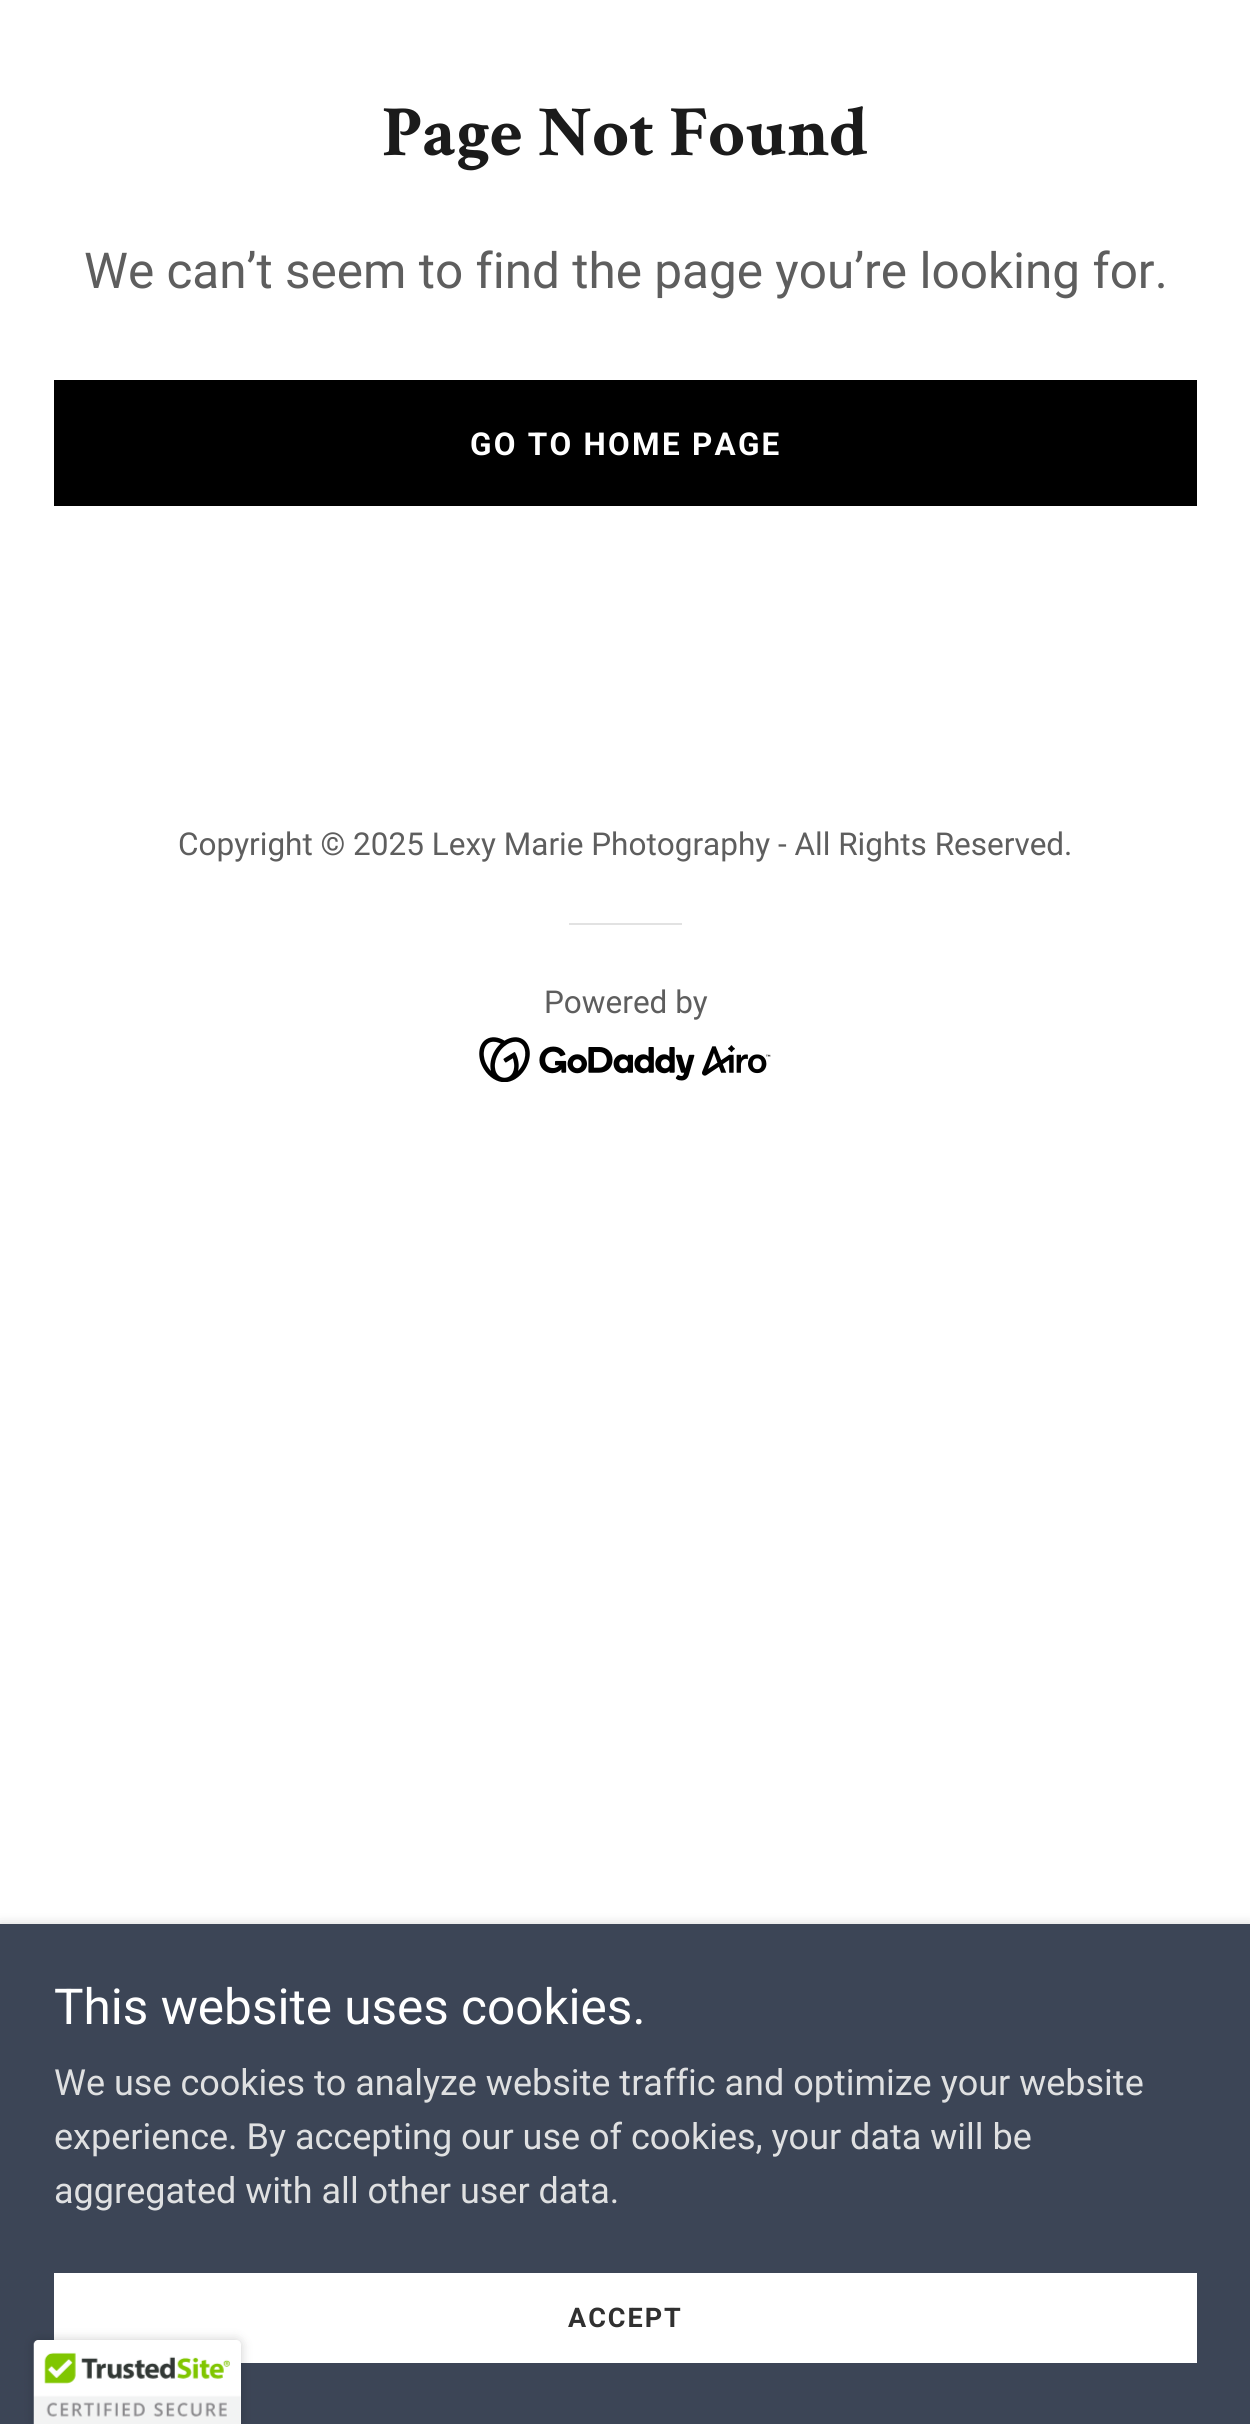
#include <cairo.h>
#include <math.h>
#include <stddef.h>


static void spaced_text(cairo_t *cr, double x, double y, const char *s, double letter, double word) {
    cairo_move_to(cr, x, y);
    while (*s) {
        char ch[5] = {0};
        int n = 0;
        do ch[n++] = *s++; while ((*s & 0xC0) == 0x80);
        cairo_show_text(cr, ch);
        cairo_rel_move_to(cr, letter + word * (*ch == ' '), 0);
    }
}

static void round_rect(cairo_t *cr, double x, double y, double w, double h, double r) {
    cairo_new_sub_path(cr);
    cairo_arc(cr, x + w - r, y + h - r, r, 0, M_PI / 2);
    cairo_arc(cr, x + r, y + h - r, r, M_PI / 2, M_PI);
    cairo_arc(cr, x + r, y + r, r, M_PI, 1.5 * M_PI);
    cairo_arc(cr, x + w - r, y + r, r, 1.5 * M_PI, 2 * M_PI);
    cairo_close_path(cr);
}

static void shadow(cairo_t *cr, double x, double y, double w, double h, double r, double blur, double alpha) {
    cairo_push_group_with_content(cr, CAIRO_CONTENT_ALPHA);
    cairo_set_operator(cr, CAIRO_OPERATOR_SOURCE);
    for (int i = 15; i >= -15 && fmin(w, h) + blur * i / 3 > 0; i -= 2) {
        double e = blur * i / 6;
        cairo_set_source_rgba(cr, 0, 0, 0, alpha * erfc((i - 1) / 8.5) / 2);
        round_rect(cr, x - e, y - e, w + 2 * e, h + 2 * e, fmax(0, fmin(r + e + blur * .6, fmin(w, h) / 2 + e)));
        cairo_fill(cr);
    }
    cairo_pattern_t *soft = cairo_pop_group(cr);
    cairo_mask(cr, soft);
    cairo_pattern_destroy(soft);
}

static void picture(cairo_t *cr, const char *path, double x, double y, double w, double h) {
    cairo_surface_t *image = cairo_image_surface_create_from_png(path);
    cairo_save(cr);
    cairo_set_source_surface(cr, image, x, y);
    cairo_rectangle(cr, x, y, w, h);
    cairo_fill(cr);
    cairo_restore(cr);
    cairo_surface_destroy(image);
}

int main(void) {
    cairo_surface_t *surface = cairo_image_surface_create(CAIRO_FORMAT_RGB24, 1250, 2424);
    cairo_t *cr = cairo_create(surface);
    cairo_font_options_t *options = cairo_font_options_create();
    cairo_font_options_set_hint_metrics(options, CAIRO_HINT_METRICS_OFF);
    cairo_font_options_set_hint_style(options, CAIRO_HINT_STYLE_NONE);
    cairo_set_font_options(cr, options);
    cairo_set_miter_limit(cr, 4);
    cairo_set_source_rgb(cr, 1, 1, 1);
    cairo_paint(cr);
    cairo_select_font_face(cr, "Crimson Text", CAIRO_FONT_SLANT_NORMAL, CAIRO_FONT_WEIGHT_BOLD);
    cairo_set_font_size(cr, 72);
    cairo_set_source_rgb(cr, 0.106, 0.106, 0.106);
    cairo_move_to(cr, 382, 155);
    cairo_show_text(cr, "Page Not Found");
    cairo_select_font_face(cr, "Roboto", CAIRO_FONT_SLANT_NORMAL, CAIRO_FONT_WEIGHT_NORMAL);
    cairo_set_font_size(cr, 49.5);
    cairo_set_source_rgb(cr, 0.369, 0.369, 0.369);
    cairo_move_to(cr, 84, 288);
    cairo_show_text(cr, "We can’t seem to find the page you’re looking for.");
    cairo_set_source_rgb(cr, 0, 0, 0);
    cairo_rectangle(cr, 54, 380, 1143, 126);
    cairo_fill(cr);
    cairo_select_font_face(cr, "Roboto", CAIRO_FONT_SLANT_NORMAL, CAIRO_FONT_WEIGHT_BOLD);
    cairo_set_font_size(cr, 31.5);
    cairo_set_source_rgb(cr, 1, 1, 1);
    spaced_text(cr, 470, 455, "GO TO HOME PAGE", 2.25, 0);
    cairo_select_font_face(cr, "Roboto", CAIRO_FONT_SLANT_NORMAL, CAIRO_FONT_WEIGHT_NORMAL);
    cairo_set_source_rgb(cr, 0.369, 0.369, 0.369);
    cairo_move_to(cr, 178, 855);
    cairo_show_text(cr, "Copyright © 2025 Lexy Marie Photography - All Rights Reserved.");
    cairo_set_source_rgb(cr, 0.886, 0.886, 0.886);
    cairo_rectangle(cr, 569, 923, 113, 2);
    cairo_fill(cr);
    cairo_set_source_rgb(cr, 0.369, 0.369, 0.369);
    cairo_move_to(cr, 544, 1013);
    cairo_show_text(cr, "Powered by");
    picture(cr, "img1.png", 479, 1037, 292, 45);
    cairo_set_source_rgb(cr, 0, 0, 0);
    shadow(cr, 0, 1928, 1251, 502, 0, 7, 0.3);
    cairo_set_source_rgb(cr, 0.235, 0.271, 0.337);
    cairo_rectangle(cr, 0, 1924, 1250, 500);
    cairo_fill(cr);
    cairo_set_font_size(cr, 49.5);
    cairo_set_source_rgb(cr, 1, 1, 1);
    cairo_move_to(cr, 54, 2024);
    cairo_show_text(cr, "This website uses cookies.");
    cairo_set_font_size(cr, 36);
    cairo_set_source_rgb(cr, 0.875, 0.878, 0.882);
    cairo_move_to(cr, 54, 2095);
    cairo_show_text(cr, "We use cookies to analyze website traffic and optimize your website");
    cairo_move_to(cr, 54, 2149);
    cairo_show_text(cr, "experience. By accepting our use of cookies, your data will be");
    cairo_move_to(cr, 54, 2203);
    cairo_show_text(cr, "aggregated with all other user data.");
    cairo_set_source_rgb(cr, 1, 1, 1);
    cairo_rectangle(cr, 54, 2273, 1143, 90);
    cairo_fill(cr);
    cairo_select_font_face(cr, "Roboto", CAIRO_FONT_SLANT_NORMAL, CAIRO_FONT_WEIGHT_BOLD);
    cairo_set_font_size(cr, 27);
    cairo_set_source_rgb(cr, 0.188, 0.188, 0.188);
    spaced_text(cr, 568, 2327, "ACCEPT", 2, 0);
    cairo_set_source_rgb(cr, 0, 0, 0);
    shadow(cr, 34, 2340, 207, 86, 5, 5.5, 0.2);
    cairo_set_source_rgb(cr, 1, 1, 1);
    cairo_new_path(cr);
    cairo_move_to(cr, 39, 2340);
    cairo_line_to(cr, 236, 2340);
    cairo_curve_to(cr, 239, 2340, 241, 2342, 241, 2345);
    cairo_line_to(cr, 241, 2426);
    cairo_line_to(cr, 34, 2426);
    cairo_line_to(cr, 34, 2345);
    cairo_curve_to(cr, 34, 2342, 36, 2340, 39, 2340);
    cairo_close_path(cr);
    cairo_fill(cr);
    picture(cr, "img2.png", 33, 2340, 208, 84);
    cairo_surface_write_to_png(surface, "page.png");
    cairo_font_options_destroy(options);
    cairo_destroy(cr);
    cairo_surface_destroy(surface);
    return 0;
}
